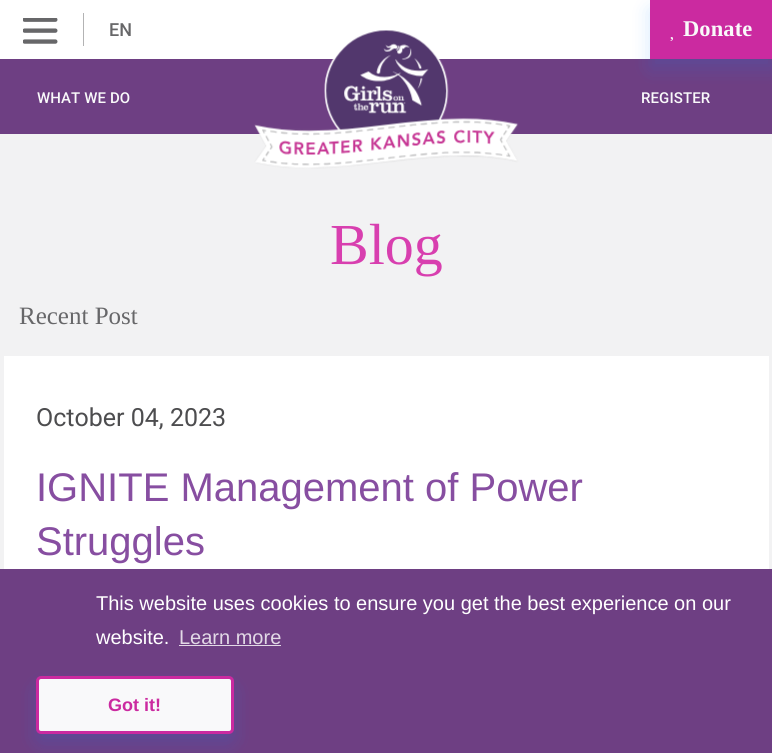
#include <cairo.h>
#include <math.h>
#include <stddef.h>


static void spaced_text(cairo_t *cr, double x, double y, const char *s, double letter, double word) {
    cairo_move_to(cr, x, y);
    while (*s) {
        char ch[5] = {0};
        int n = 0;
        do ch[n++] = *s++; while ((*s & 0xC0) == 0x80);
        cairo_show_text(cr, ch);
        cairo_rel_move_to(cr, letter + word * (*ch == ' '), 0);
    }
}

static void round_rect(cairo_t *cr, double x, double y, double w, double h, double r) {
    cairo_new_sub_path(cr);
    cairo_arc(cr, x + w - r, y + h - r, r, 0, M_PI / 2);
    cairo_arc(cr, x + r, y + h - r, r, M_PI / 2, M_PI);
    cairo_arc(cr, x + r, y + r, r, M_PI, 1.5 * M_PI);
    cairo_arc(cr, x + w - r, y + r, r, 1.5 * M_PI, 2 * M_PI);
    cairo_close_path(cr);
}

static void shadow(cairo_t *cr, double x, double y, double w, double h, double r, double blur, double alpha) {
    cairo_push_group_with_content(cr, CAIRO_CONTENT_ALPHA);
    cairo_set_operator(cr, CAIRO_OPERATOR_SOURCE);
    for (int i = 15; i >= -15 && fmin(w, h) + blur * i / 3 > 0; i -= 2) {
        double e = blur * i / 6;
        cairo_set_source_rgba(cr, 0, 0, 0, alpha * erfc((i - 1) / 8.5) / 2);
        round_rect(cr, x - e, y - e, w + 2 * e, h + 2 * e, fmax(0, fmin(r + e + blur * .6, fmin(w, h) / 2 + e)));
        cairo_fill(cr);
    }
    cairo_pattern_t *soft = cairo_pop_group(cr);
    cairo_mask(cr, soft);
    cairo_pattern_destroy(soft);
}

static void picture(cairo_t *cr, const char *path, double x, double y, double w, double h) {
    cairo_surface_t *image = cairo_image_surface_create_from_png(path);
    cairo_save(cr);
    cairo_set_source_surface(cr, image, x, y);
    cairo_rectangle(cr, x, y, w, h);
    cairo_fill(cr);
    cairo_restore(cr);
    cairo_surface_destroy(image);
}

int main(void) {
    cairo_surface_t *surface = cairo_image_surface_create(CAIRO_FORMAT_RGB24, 772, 753);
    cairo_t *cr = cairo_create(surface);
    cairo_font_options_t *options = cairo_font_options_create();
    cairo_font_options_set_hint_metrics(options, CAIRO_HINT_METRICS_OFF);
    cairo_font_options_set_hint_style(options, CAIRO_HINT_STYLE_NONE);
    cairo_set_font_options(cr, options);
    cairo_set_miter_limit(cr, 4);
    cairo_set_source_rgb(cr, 0.949, 0.949, 0.953);
    cairo_paint(cr);
    cairo_set_source_rgb(cr, 1, 1, 1);
    cairo_rectangle(cr, 0, 0, 650, 59);
    cairo_fill(cr);
    picture(cr, "img1.png", 23, 18, 35, 26);
    cairo_set_source_rgb(cr, 0.702, 0.702, 0.706);
    cairo_rectangle(cr, 83, 13, 1, 33);
    cairo_fill(cr);
    cairo_select_font_face(cr, "Roboto Medium", CAIRO_FONT_SLANT_NORMAL, CAIRO_FONT_WEIGHT_NORMAL);
    cairo_set_font_size(cr, 18);
    cairo_set_source_rgb(cr, 0.404, 0.404, 0.412);
    spaced_text(cr, 109, 36, "EN", 0.1, 0);
    cairo_set_source_rgb(cr, 0.431, 0.247, 0.514);
    cairo_rectangle(cr, 0, 59, 772, 75);
    cairo_fill(cr);
    cairo_set_source_rgb(cr, 0, 0.494, 1);
    shadow(cr, 650, 10, 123, 59, 0, 10, 0.16);
    cairo_set_source_rgb(cr, 0.796, 0.165, 0.627);
    cairo_rectangle(cr, 650, 0, 122, 59);
    cairo_fill(cr);
    cairo_select_font_face(cr, "Liberation Serif", CAIRO_FONT_SLANT_NORMAL, CAIRO_FONT_WEIGHT_BOLD);
    cairo_set_font_size(cr, 22.5);
    cairo_set_source_rgb(cr, 0.976, 0.976, 0.98);
    spaced_text(cr, 683, 36, "Donate", 0.1, 0);
    picture(cr, "img2.png", 670, 37, 3, 4);
    cairo_select_font_face(cr, "Roboto Medium", CAIRO_FONT_SLANT_NORMAL, CAIRO_FONT_WEIGHT_NORMAL);
    cairo_set_font_size(cr, 15);
    spaced_text(cr, 37, 103, "WHAT WE DO", 0.1, 0);
    spaced_text(cr, 641, 103, "REGISTER", 0.1, 0);
    picture(cr, "img3.png", 254, 30, 265, 139);
    cairo_select_font_face(cr, "Liberation Serif", CAIRO_FONT_SLANT_NORMAL, CAIRO_FONT_WEIGHT_NORMAL);
    cairo_set_font_size(cr, 58);
    cairo_set_source_rgb(cr, 0.847, 0.247, 0.686);
    cairo_move_to(cr, 330, 264);
    cairo_show_text(cr, "Blog");
    cairo_set_font_size(cr, 25);
    cairo_set_source_rgb(cr, 0.404, 0.404, 0.412);
    cairo_move_to(cr, 19, 324);
    cairo_show_text(cr, "Recent Post");
    cairo_set_source_rgb(cr, 1, 1, 1);
    cairo_rectangle(cr, 4, 356, 765, 213);
    cairo_fill(cr);
    cairo_select_font_face(cr, "Roboto", CAIRO_FONT_SLANT_NORMAL, CAIRO_FONT_WEIGHT_NORMAL);
    cairo_set_source_rgb(cr, 0.302, 0.302, 0.31);
    cairo_move_to(cr, 36, 426);
    cairo_show_text(cr, "October 04, 2023");
    cairo_select_font_face(cr, "Liberation Sans", CAIRO_FONT_SLANT_NORMAL, CAIRO_FONT_WEIGHT_NORMAL);
    cairo_set_font_size(cr, 40);
    cairo_set_source_rgb(cr, 0.529, 0.306, 0.631);
    cairo_move_to(cr, 36, 501);
    cairo_show_text(cr, "IGNITE Management of Power");
    cairo_move_to(cr, 36, 555);
    cairo_show_text(cr, "Struggles");
    cairo_set_source_rgb(cr, 0.431, 0.247, 0.514);
    cairo_rectangle(cr, 0, 569, 772, 184);
    cairo_fill(cr);
    cairo_set_font_size(cr, 20);
    cairo_set_source_rgb(cr, 1, 1, 1);
    cairo_move_to(cr, 96, 610);
    cairo_show_text(cr, "This website uses cookies to ensure you get the best experience on our");
    cairo_move_to(cr, 96, 644);
    cairo_show_text(cr, "website.");
    cairo_set_source_rgb(cr, 0.886, 0.851, 0.902);
    cairo_move_to(cr, 179, 644);
    cairo_show_text(cr, "Learn more");
    cairo_rectangle(cr, 179, 645, 102, 1);
    cairo_fill(cr);
    cairo_set_source_rgb(cr, 0, 0.494, 1);
    shadow(cr, 36, 686, 198, 58, 5, 10, 0.16);
    cairo_set_source_rgb(cr, 0.976, 0.976, 0.98);
    round_rect(cr, 37.5, 677.5, 195, 55, 3.5);
    cairo_fill_preserve(cr);
    cairo_set_source_rgb(cr, 0.796, 0.165, 0.627);
    cairo_set_line_width(cr, 3);
    cairo_stroke(cr);
    cairo_select_font_face(cr, "Liberation Sans", CAIRO_FONT_SLANT_NORMAL, CAIRO_FONT_WEIGHT_BOLD);
    cairo_set_font_size(cr, 18);
    cairo_move_to(cr, 108, 711);
    cairo_show_text(cr, "Got it!");
    cairo_surface_write_to_png(surface, "page.png");
    cairo_font_options_destroy(options);
    cairo_destroy(cr);
    cairo_surface_destroy(surface);
    return 0;
}
